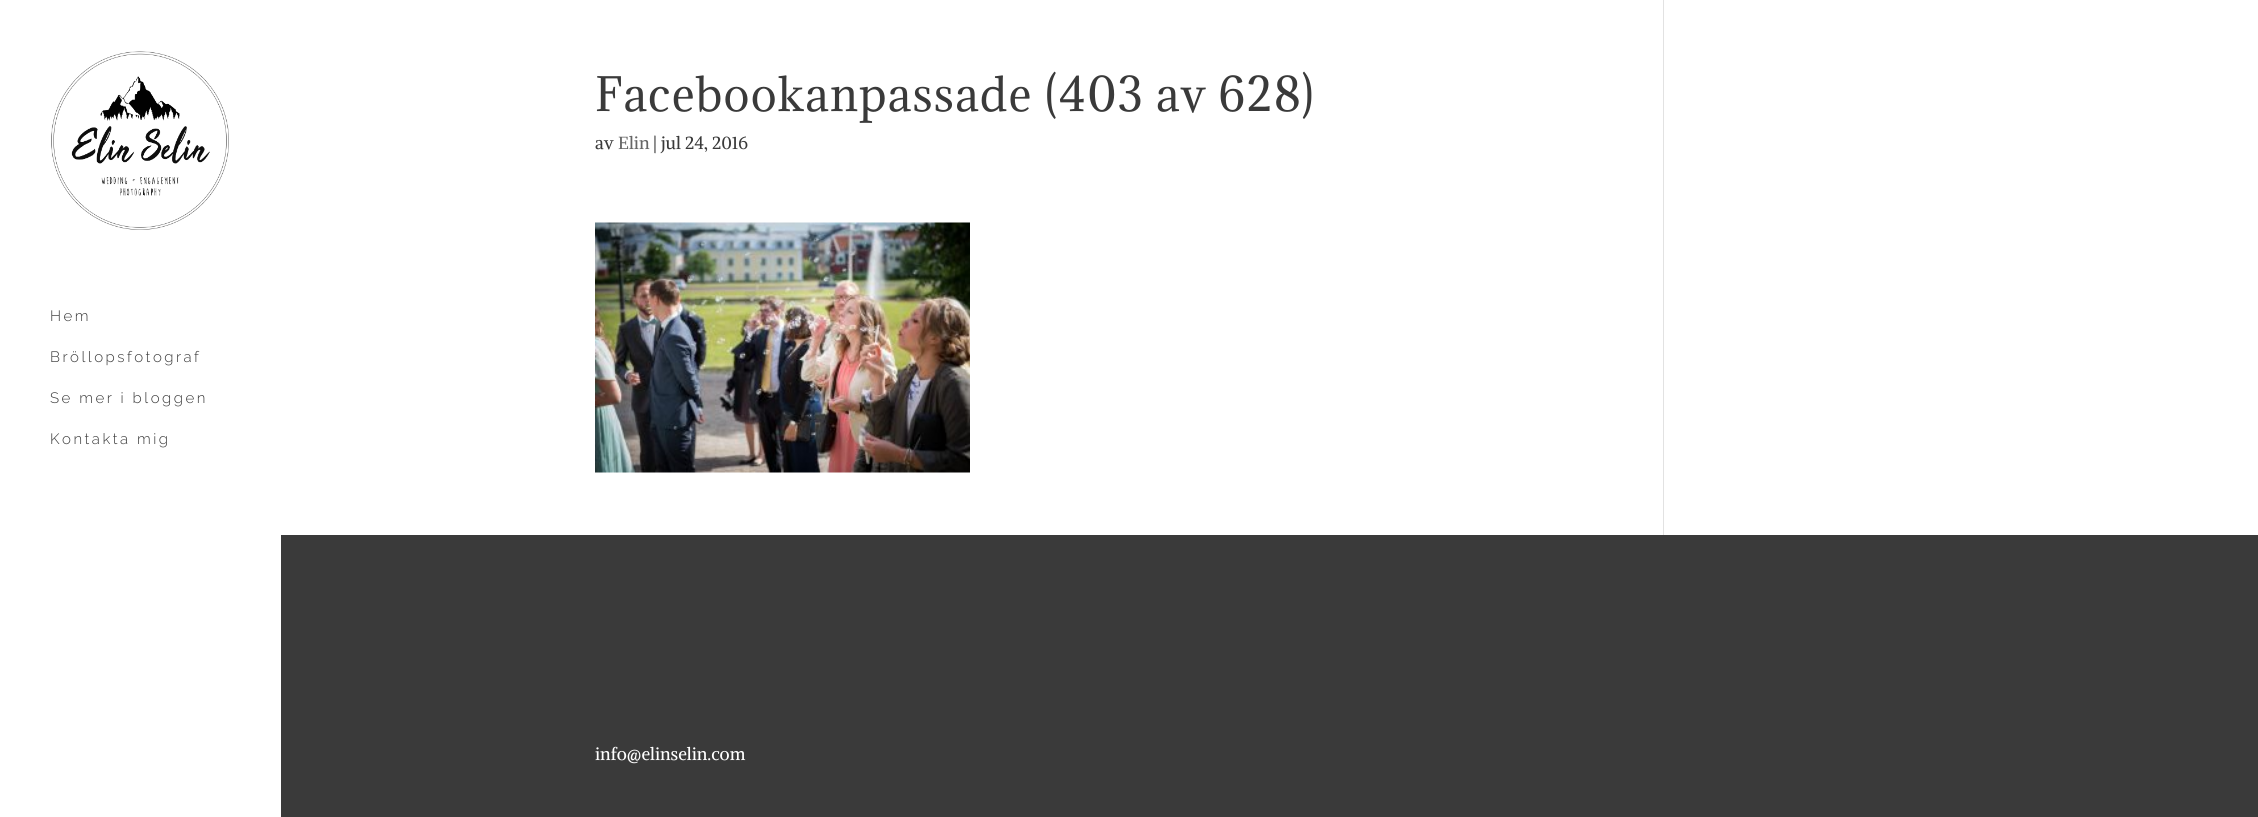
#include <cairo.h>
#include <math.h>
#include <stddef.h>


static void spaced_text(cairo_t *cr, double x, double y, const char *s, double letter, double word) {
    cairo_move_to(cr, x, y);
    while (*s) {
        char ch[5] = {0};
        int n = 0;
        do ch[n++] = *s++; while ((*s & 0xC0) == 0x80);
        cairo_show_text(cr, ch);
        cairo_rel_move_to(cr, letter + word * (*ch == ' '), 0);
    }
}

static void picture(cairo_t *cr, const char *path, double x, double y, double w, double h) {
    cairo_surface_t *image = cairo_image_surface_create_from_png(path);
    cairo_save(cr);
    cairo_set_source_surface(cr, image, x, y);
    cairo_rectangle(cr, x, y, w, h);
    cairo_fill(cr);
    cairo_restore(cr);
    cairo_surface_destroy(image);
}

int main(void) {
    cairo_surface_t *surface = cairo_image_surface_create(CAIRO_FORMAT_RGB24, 2258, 817);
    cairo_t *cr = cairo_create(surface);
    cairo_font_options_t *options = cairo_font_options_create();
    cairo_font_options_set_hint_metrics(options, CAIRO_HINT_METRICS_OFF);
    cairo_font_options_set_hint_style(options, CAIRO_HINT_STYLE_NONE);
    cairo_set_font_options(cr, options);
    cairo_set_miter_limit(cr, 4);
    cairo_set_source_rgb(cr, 1, 1, 1);
    cairo_paint(cr);
    picture(cr, "img1.png", 51, 51, 178, 179);
    cairo_select_font_face(cr, "Raleway Light", CAIRO_FONT_SLANT_NORMAL, CAIRO_FONT_WEIGHT_NORMAL);
    cairo_set_font_size(cr, 15);
    cairo_set_source_rgb(cr, 0.227, 0.227, 0.227);
    spaced_text(cr, 50, 321, "Hem", 2.5, 0);
    spaced_text(cr, 50, 362, "Bröllopsfotograf", 2.5, 0);
    spaced_text(cr, 50, 403, "Se mer i bloggen", 2.5, 0);
    spaced_text(cr, 50, 444, "Kontakta mig", 2.5, 0);
    cairo_select_font_face(cr, "Adamina", CAIRO_FONT_SLANT_NORMAL, CAIRO_FONT_WEIGHT_NORMAL);
    cairo_set_font_size(cr, 43.75);
    spaced_text(cr, 595, 111, "Facebookanpassade (403 av 628)", 1.25, 0);
    cairo_select_font_face(cr, "Alike", CAIRO_FONT_SLANT_NORMAL, CAIRO_FONT_WEIGHT_NORMAL);
    cairo_set_font_size(cr, 17.5);
    cairo_move_to(cr, 595, 149);
    cairo_show_text(cr, "av");
    cairo_set_source_rgb(cr, 0.4, 0.4, 0.4);
    cairo_move_to(cr, 618, 149);
    cairo_show_text(cr, "Elin");
    cairo_set_source_rgb(cr, 0.227, 0.227, 0.227);
    cairo_move_to(cr, 653, 149);
    cairo_show_text(cr, "| jul 24, 2016");
    picture(cr, "img2.png", 595, 222, 375, 251);
    cairo_set_source_rgb(cr, 0.886, 0.886, 0.886);
    cairo_rectangle(cr, 1663, 0, 1, 535);
    cairo_fill(cr);
    cairo_set_source_rgb(cr, 0.227, 0.227, 0.227);
    cairo_rectangle(cr, 281, 535, 1977, 282);
    cairo_fill(cr);
    cairo_set_source_rgb(cr, 1, 1, 1);
    cairo_move_to(cr, 595, 760);
    cairo_show_text(cr, "info@elinselin.com");
    cairo_surface_write_to_png(surface, "page.png");
    cairo_font_options_destroy(options);
    cairo_destroy(cr);
    cairo_surface_destroy(surface);
    return 0;
}
